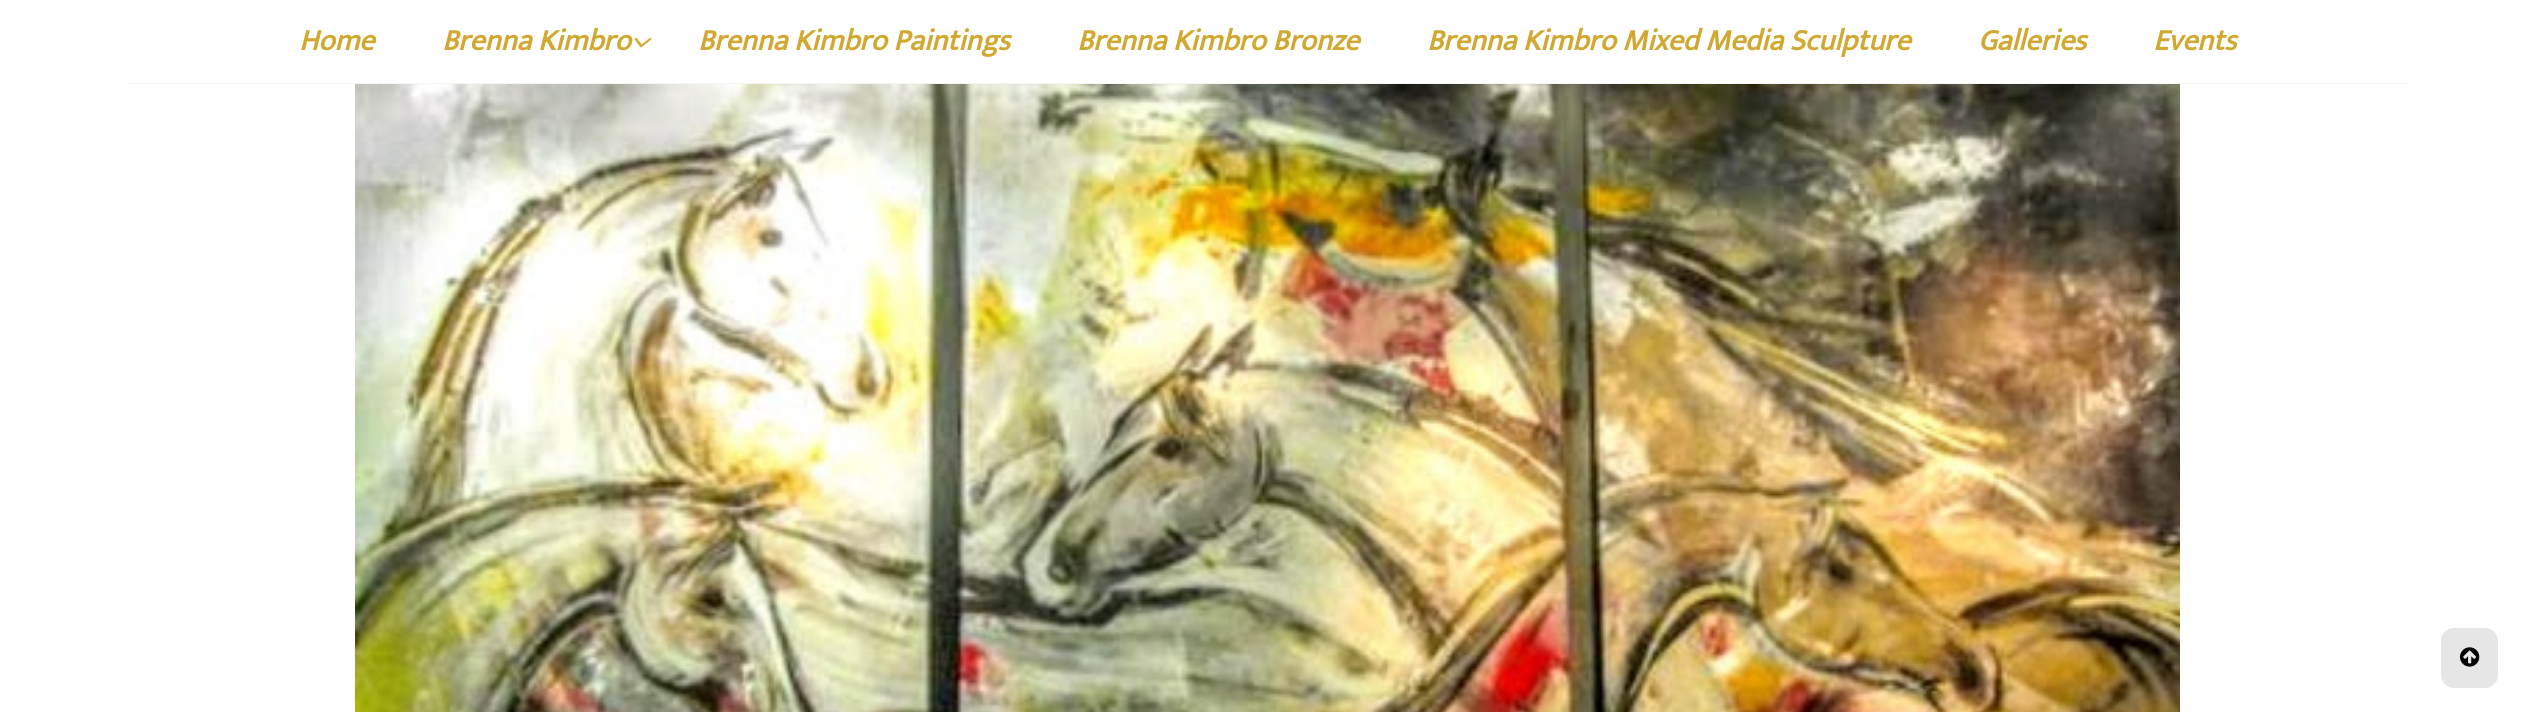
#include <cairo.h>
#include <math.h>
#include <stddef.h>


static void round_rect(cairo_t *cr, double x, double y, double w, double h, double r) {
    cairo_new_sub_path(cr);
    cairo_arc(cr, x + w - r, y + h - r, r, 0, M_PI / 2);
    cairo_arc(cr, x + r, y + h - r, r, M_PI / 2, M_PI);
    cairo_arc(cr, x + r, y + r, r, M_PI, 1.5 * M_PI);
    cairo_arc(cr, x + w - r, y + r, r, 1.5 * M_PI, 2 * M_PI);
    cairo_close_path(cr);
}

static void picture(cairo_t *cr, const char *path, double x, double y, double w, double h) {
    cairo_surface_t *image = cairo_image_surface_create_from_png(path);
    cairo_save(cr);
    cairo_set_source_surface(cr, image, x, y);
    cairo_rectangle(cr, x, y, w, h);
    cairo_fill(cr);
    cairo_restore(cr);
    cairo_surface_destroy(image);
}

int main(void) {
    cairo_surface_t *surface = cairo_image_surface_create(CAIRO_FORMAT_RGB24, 2535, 712);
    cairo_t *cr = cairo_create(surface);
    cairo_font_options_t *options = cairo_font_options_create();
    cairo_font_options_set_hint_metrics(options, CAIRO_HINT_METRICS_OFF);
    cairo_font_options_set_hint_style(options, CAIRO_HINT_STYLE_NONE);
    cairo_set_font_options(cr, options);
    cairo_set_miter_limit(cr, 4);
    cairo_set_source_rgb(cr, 1, 1, 1);
    cairo_paint(cr);
    cairo_set_source_rgb(cr, 0.961, 0.961, 0.961);
    cairo_rectangle(cr, 126, 83, 2283, 1);
    cairo_fill(cr);
    cairo_select_font_face(cr, "Ek Mukta", CAIRO_FONT_SLANT_ITALIC, CAIRO_FONT_WEIGHT_BOLD);
    cairo_set_font_size(cr, 30);
    cairo_set_source_rgb(cr, 0.82, 0.659, 0.188);
    cairo_move_to(cr, 299, 50);
    cairo_show_text(cr, "Home");
    cairo_move_to(cr, 442, 50);
    cairo_show_text(cr, "Brenna Kimbro");
    picture(cr, "img1.png", 634, 37, 18, 11);
    cairo_move_to(cr, 698, 50);
    cairo_show_text(cr, "Brenna Kimbro Paintings");
    cairo_move_to(cr, 1077, 50);
    cairo_show_text(cr, "Brenna Kimbro Bronze");
    cairo_move_to(cr, 1427, 50);
    cairo_show_text(cr, "Brenna Kimbro Mixed Media Sculpture");
    cairo_move_to(cr, 1978, 50);
    cairo_show_text(cr, "Galleries");
    cairo_move_to(cr, 2153, 50);
    cairo_show_text(cr, "Events");
    picture(cr, "img2.png", 355, 84, 1825, 628);
    cairo_set_source_rgb(cr, 0.902, 0.902, 0.902);
    round_rect(cr, 2441, 628, 57, 60, 13);
    cairo_fill(cr);
    picture(cr, "img3.png", 2460, 647, 20, 20);
    cairo_surface_write_to_png(surface, "page.png");
    cairo_font_options_destroy(options);
    cairo_destroy(cr);
    cairo_surface_destroy(surface);
    return 0;
}
